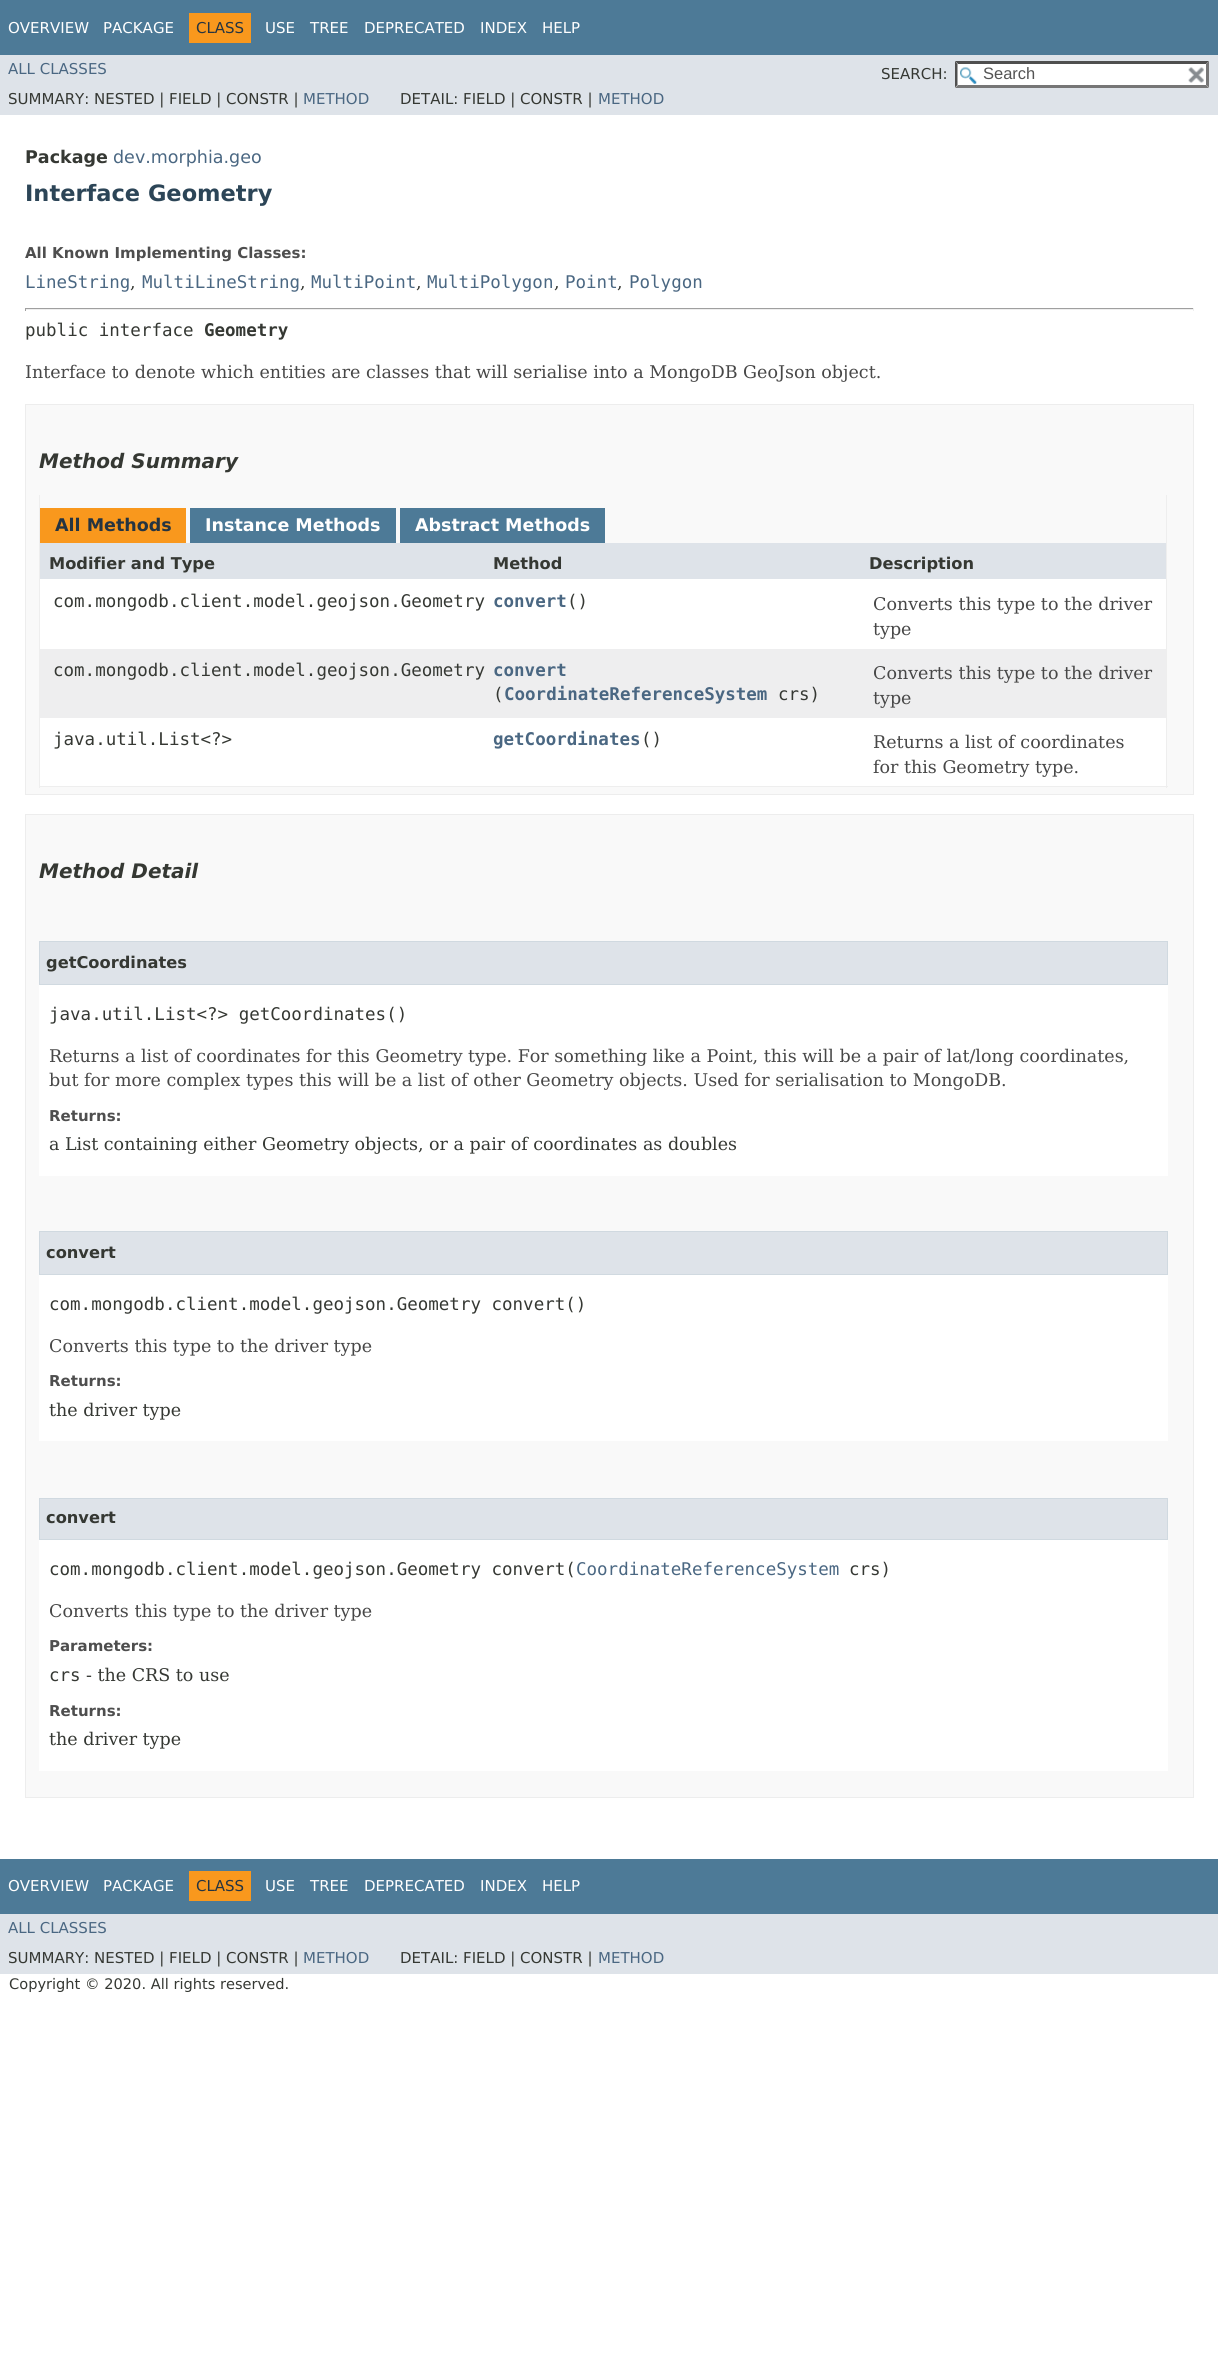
#include <cairo.h>
#include <math.h>
#include <stddef.h>


static void picture(cairo_t *cr, const char *path, double x, double y, double w, double h) {
    cairo_surface_t *image = cairo_image_surface_create_from_png(path);
    cairo_save(cr);
    cairo_set_source_surface(cr, image, x, y);
    cairo_rectangle(cr, x, y, w, h);
    cairo_fill(cr);
    cairo_restore(cr);
    cairo_surface_destroy(image);
}

int main(void) {
    cairo_surface_t *surface = cairo_image_surface_create(CAIRO_FORMAT_RGB24, 1218, 2356);
    cairo_t *cr = cairo_create(surface);
    cairo_font_options_t *options = cairo_font_options_create();
    cairo_font_options_set_hint_metrics(options, CAIRO_HINT_METRICS_OFF);
    cairo_font_options_set_hint_style(options, CAIRO_HINT_STYLE_NONE);
    cairo_set_font_options(cr, options);
    cairo_set_miter_limit(cr, 4);
    cairo_set_source_rgb(cr, 1, 1, 1);
    cairo_paint(cr);
    cairo_set_source_rgb(cr, 0.302, 0.478, 0.592);
    cairo_rectangle(cr, 0, 0, 1218, 55);
    cairo_fill(cr);
    cairo_select_font_face(cr, "DejaVu Sans", CAIRO_FONT_SLANT_NORMAL, CAIRO_FONT_WEIGHT_NORMAL);
    cairo_set_font_size(cr, 15);
    cairo_set_source_rgb(cr, 1, 1, 1);
    cairo_move_to(cr, 8, 33);
    cairo_show_text(cr, "OVERVIEW");
    cairo_move_to(cr, 103, 33);
    cairo_show_text(cr, "PACKAGE");
    cairo_set_source_rgb(cr, 0.973, 0.596, 0.114);
    cairo_rectangle(cr, 189, 13, 62, 30);
    cairo_fill(cr);
    cairo_set_source_rgb(cr, 0.145, 0.204, 0.255);
    cairo_move_to(cr, 196, 33);
    cairo_show_text(cr, "CLASS");
    cairo_set_source_rgb(cr, 1, 1, 1);
    cairo_move_to(cr, 265, 33);
    cairo_show_text(cr, "USE");
    cairo_move_to(cr, 310, 33);
    cairo_show_text(cr, "TREE");
    cairo_move_to(cr, 364, 33);
    cairo_show_text(cr, "DEPRECATED");
    cairo_move_to(cr, 480, 33);
    cairo_show_text(cr, "INDEX");
    cairo_move_to(cr, 542, 33);
    cairo_show_text(cr, "HELP");
    cairo_set_source_rgb(cr, 0.871, 0.89, 0.914);
    cairo_rectangle(cr, 0, 55, 1218, 60);
    cairo_fill(cr);
    cairo_set_source_rgb(cr, 0.29, 0.404, 0.51);
    cairo_move_to(cr, 8, 74);
    cairo_show_text(cr, "ALL CLASSES");
    cairo_set_source_rgb(cr, 0.208, 0.22, 0.2);
    cairo_move_to(cr, 881, 79);
    cairo_show_text(cr, "SEARCH:");
    cairo_set_source_rgb(cr, 1, 1, 1);
    cairo_rectangle(cr, 955, 61, 254, 27);
    cairo_fill(cr);
    picture(cr, "img1.png", 960, 67, 17, 17);
    cairo_set_source_rgb(cr, 0.31, 0.31, 0.31);
    cairo_new_path(cr);
    cairo_move_to(cr, 955, 61);
    cairo_line_to(cr, 1209, 61);
    cairo_line_to(cr, 1206, 64);
    cairo_line_to(cr, 958, 64);
    cairo_close_path(cr);
    cairo_fill(cr);
    cairo_set_source_rgb(cr, 0.463, 0.463, 0.463);
    cairo_new_path(cr);
    cairo_move_to(cr, 1209, 61);
    cairo_line_to(cr, 1209, 87.5);
    cairo_line_to(cr, 1206, 85);
    cairo_line_to(cr, 1206, 64);
    cairo_close_path(cr);
    cairo_fill(cr);
    cairo_new_path(cr);
    cairo_move_to(cr, 1209, 88);
    cairo_line_to(cr, 955, 88);
    cairo_line_to(cr, 958, 85);
    cairo_line_to(cr, 1206, 85);
    cairo_close_path(cr);
    cairo_fill(cr);
    cairo_set_source_rgb(cr, 0.31, 0.31, 0.31);
    cairo_new_path(cr);
    cairo_move_to(cr, 955, 87.5);
    cairo_line_to(cr, 955, 61);
    cairo_line_to(cr, 957.5, 64);
    cairo_line_to(cr, 957.5, 85);
    cairo_close_path(cr);
    cairo_fill(cr);
    cairo_select_font_face(cr, "Liberation Sans", CAIRO_FONT_SLANT_NORMAL, CAIRO_FONT_WEIGHT_NORMAL);
    cairo_set_font_size(cr, 16.5);
    cairo_set_source_rgb(cr, 0.329, 0.329, 0.329);
    cairo_move_to(cr, 983, 79);
    cairo_show_text(cr, "Search");
    picture(cr, "img2.png", 1188, 67, 16, 16);
    cairo_select_font_face(cr, "DejaVu Sans", CAIRO_FONT_SLANT_NORMAL, CAIRO_FONT_WEIGHT_NORMAL);
    cairo_set_font_size(cr, 15);
    cairo_set_source_rgb(cr, 0.208, 0.22, 0.2);
    cairo_move_to(cr, 8, 104);
    cairo_show_text(cr, "SUMMARY: NESTED | FIELD | CONSTR |");
    cairo_set_source_rgb(cr, 0.29, 0.404, 0.51);
    cairo_move_to(cr, 303, 104);
    cairo_show_text(cr, "METHOD");
    cairo_set_source_rgb(cr, 0.208, 0.22, 0.2);
    cairo_move_to(cr, 400, 104);
    cairo_show_text(cr, "DETAIL: FIELD | CONSTR |");
    cairo_set_source_rgb(cr, 0.29, 0.404, 0.51);
    cairo_move_to(cr, 598, 104);
    cairo_show_text(cr, "METHOD");
    cairo_select_font_face(cr, "DejaVu Sans", CAIRO_FONT_SLANT_NORMAL, CAIRO_FONT_WEIGHT_BOLD);
    cairo_set_font_size(cr, 17.5);
    cairo_set_source_rgb(cr, 0.208, 0.22, 0.2);
    cairo_move_to(cr, 25, 163);
    cairo_show_text(cr, "Package");
    cairo_select_font_face(cr, "DejaVu Sans", CAIRO_FONT_SLANT_NORMAL, CAIRO_FONT_WEIGHT_NORMAL);
    cairo_set_source_rgb(cr, 0.29, 0.404, 0.51);
    cairo_move_to(cr, 113, 163);
    cairo_show_text(cr, "dev.morphia.geo");
    cairo_select_font_face(cr, "DejaVu Sans", CAIRO_FONT_SLANT_NORMAL, CAIRO_FONT_WEIGHT_BOLD);
    cairo_set_font_size(cr, 22.5);
    cairo_set_source_rgb(cr, 0.173, 0.271, 0.341);
    cairo_move_to(cr, 25, 201);
    cairo_show_text(cr, "Interface Geometry");
    cairo_set_font_size(cr, 15);
    cairo_set_source_rgb(cr, 0.306, 0.306, 0.306);
    cairo_move_to(cr, 25, 258);
    cairo_show_text(cr, "All Known Implementing Classes:");
    cairo_select_font_face(cr, "DejaVu Sans Mono", CAIRO_FONT_SLANT_NORMAL, CAIRO_FONT_WEIGHT_NORMAL);
    cairo_set_font_size(cr, 17.5);
    cairo_set_source_rgb(cr, 0.29, 0.404, 0.51);
    cairo_move_to(cr, 25, 288);
    cairo_show_text(cr, "LineString");
    cairo_select_font_face(cr, "DejaVu Serif", CAIRO_FONT_SLANT_NORMAL, CAIRO_FONT_WEIGHT_NORMAL);
    cairo_set_source_rgb(cr, 0.208, 0.22, 0.2);
    cairo_move_to(cr, 130, 288);
    cairo_show_text(cr, ",");
    cairo_select_font_face(cr, "DejaVu Sans Mono", CAIRO_FONT_SLANT_NORMAL, CAIRO_FONT_WEIGHT_NORMAL);
    cairo_set_source_rgb(cr, 0.29, 0.404, 0.51);
    cairo_move_to(cr, 142, 288);
    cairo_show_text(cr, "MultiLineString");
    cairo_select_font_face(cr, "DejaVu Serif", CAIRO_FONT_SLANT_NORMAL, CAIRO_FONT_WEIGHT_NORMAL);
    cairo_set_source_rgb(cr, 0.208, 0.22, 0.2);
    cairo_move_to(cr, 300, 288);
    cairo_show_text(cr, ",");
    cairo_select_font_face(cr, "DejaVu Sans Mono", CAIRO_FONT_SLANT_NORMAL, CAIRO_FONT_WEIGHT_NORMAL);
    cairo_set_source_rgb(cr, 0.29, 0.404, 0.51);
    cairo_move_to(cr, 311, 288);
    cairo_show_text(cr, "MultiPoint");
    cairo_select_font_face(cr, "DejaVu Serif", CAIRO_FONT_SLANT_NORMAL, CAIRO_FONT_WEIGHT_NORMAL);
    cairo_set_source_rgb(cr, 0.208, 0.22, 0.2);
    cairo_move_to(cr, 416, 288);
    cairo_show_text(cr, ",");
    cairo_select_font_face(cr, "DejaVu Sans Mono", CAIRO_FONT_SLANT_NORMAL, CAIRO_FONT_WEIGHT_NORMAL);
    cairo_set_source_rgb(cr, 0.29, 0.404, 0.51);
    cairo_move_to(cr, 427, 288);
    cairo_show_text(cr, "MultiPolygon");
    cairo_select_font_face(cr, "DejaVu Serif", CAIRO_FONT_SLANT_NORMAL, CAIRO_FONT_WEIGHT_NORMAL);
    cairo_set_source_rgb(cr, 0.208, 0.22, 0.2);
    cairo_move_to(cr, 554, 288);
    cairo_show_text(cr, ",");
    cairo_select_font_face(cr, "DejaVu Sans Mono", CAIRO_FONT_SLANT_NORMAL, CAIRO_FONT_WEIGHT_NORMAL);
    cairo_set_source_rgb(cr, 0.29, 0.404, 0.51);
    cairo_move_to(cr, 565, 288);
    cairo_show_text(cr, "Point");
    cairo_select_font_face(cr, "DejaVu Serif", CAIRO_FONT_SLANT_NORMAL, CAIRO_FONT_WEIGHT_NORMAL);
    cairo_set_source_rgb(cr, 0.208, 0.22, 0.2);
    cairo_move_to(cr, 617, 288);
    cairo_show_text(cr, ",");
    cairo_select_font_face(cr, "DejaVu Sans Mono", CAIRO_FONT_SLANT_NORMAL, CAIRO_FONT_WEIGHT_NORMAL);
    cairo_set_source_rgb(cr, 0.29, 0.404, 0.51);
    cairo_move_to(cr, 629, 288);
    cairo_show_text(cr, "Polygon");
    cairo_set_source_rgb(cr, 0.624, 0.624, 0.624);
    cairo_rectangle(cr, 25, 308, 1169, 1);
    cairo_fill(cr);
    cairo_set_source_rgb(cr, 0.933, 0.933, 0.933);
    cairo_rectangle(cr, 1193, 308, 1, 3);
    cairo_fill(cr);
    cairo_rectangle(cr, 25, 309, 1169, 1);
    cairo_fill(cr);
    cairo_set_source_rgb(cr, 0.624, 0.624, 0.624);
    cairo_rectangle(cr, 25, 308, 1, 3);
    cairo_fill(cr);
    cairo_set_source_rgb(cr, 0.208, 0.22, 0.2);
    cairo_move_to(cr, 25, 336);
    cairo_show_text(cr, "public interface");
    cairo_select_font_face(cr, "DejaVu Sans Mono", CAIRO_FONT_SLANT_NORMAL, CAIRO_FONT_WEIGHT_BOLD);
    cairo_move_to(cr, 204, 336);
    cairo_show_text(cr, "Geometry");
    cairo_select_font_face(cr, "DejaVu Serif", CAIRO_FONT_SLANT_NORMAL, CAIRO_FONT_WEIGHT_NORMAL);
    cairo_set_source_rgb(cr, 0.278, 0.278, 0.278);
    cairo_move_to(cr, 25, 378);
    cairo_show_text(cr, "Interface to denote which entities are classes that will serialise into a MongoDB GeoJson object.");
    cairo_set_source_rgb(cr, 0.973, 0.973, 0.973);
    cairo_rectangle(cr, 25.5, 404.5, 1168, 390);
    cairo_fill_preserve(cr);
    cairo_set_source_rgb(cr, 0.929, 0.929, 0.929);
    cairo_set_line_width(cr, 1);
    cairo_stroke(cr);
    cairo_select_font_face(cr, "DejaVu Sans", CAIRO_FONT_SLANT_ITALIC, CAIRO_FONT_WEIGHT_BOLD);
    cairo_set_font_size(cr, 20);
    cairo_set_source_rgb(cr, 0.208, 0.22, 0.2);
    cairo_move_to(cr, 39, 468);
    cairo_show_text(cr, "Method Summary");
    cairo_set_source_rgb(cr, 0.933, 0.933, 0.933);
    cairo_rectangle(cr, 1166, 495, 1, 293);
    cairo_fill(cr);
    cairo_rectangle(cr, 39, 786, 1129, 1);
    cairo_fill(cr);
    cairo_rectangle(cr, 39, 495, 1, 293);
    cairo_fill(cr);
    cairo_set_source_rgb(cr, 0.973, 0.596, 0.114);
    cairo_rectangle(cr, 40, 508, 146, 35);
    cairo_fill(cr);
    cairo_select_font_face(cr, "DejaVu Sans", CAIRO_FONT_SLANT_NORMAL, CAIRO_FONT_WEIGHT_BOLD);
    cairo_set_font_size(cr, 17.5);
    cairo_set_source_rgb(cr, 0.145, 0.204, 0.255);
    cairo_move_to(cr, 55, 531);
    cairo_show_text(cr, "All Methods");
    cairo_set_source_rgb(cr, 0.302, 0.478, 0.592);
    cairo_rectangle(cr, 190, 508, 206, 35);
    cairo_fill(cr);
    cairo_set_source_rgb(cr, 1, 1, 1);
    cairo_move_to(cr, 205, 531);
    cairo_show_text(cr, "Instance Methods");
    cairo_set_source_rgb(cr, 0.302, 0.478, 0.592);
    cairo_rectangle(cr, 400, 508, 205, 35);
    cairo_fill(cr);
    cairo_set_source_rgb(cr, 1, 1, 1);
    cairo_move_to(cr, 415, 531);
    cairo_show_text(cr, "Abstract Methods");
    cairo_set_source_rgb(cr, 0.871, 0.89, 0.914);
    cairo_rectangle(cr, 40, 543, 1126, 36);
    cairo_fill(cr);
    cairo_set_font_size(cr, 16.25);
    cairo_set_source_rgb(cr, 0.208, 0.22, 0.2);
    cairo_move_to(cr, 49, 569);
    cairo_show_text(cr, "Modifier and Type");
    cairo_move_to(cr, 493, 569);
    cairo_show_text(cr, "Method");
    cairo_move_to(cr, 869, 569);
    cairo_show_text(cr, "Description");
    cairo_set_source_rgb(cr, 1, 1, 1);
    cairo_rectangle(cr, 40, 579, 1126, 70);
    cairo_fill(cr);
    cairo_select_font_face(cr, "DejaVu Sans Mono", CAIRO_FONT_SLANT_NORMAL, CAIRO_FONT_WEIGHT_NORMAL);
    cairo_set_font_size(cr, 17.5);
    cairo_set_source_rgb(cr, 0.208, 0.22, 0.2);
    cairo_move_to(cr, 53, 607);
    cairo_show_text(cr, "com.mongodb.client.model.geojson.Geometry");
    cairo_select_font_face(cr, "DejaVu Sans Mono", CAIRO_FONT_SLANT_NORMAL, CAIRO_FONT_WEIGHT_BOLD);
    cairo_set_source_rgb(cr, 0.29, 0.404, 0.51);
    cairo_move_to(cr, 493, 607);
    cairo_show_text(cr, "convert");
    cairo_select_font_face(cr, "DejaVu Sans Mono", CAIRO_FONT_SLANT_NORMAL, CAIRO_FONT_WEIGHT_NORMAL);
    cairo_set_source_rgb(cr, 0.208, 0.22, 0.2);
    cairo_move_to(cr, 567, 607);
    cairo_show_text(cr, "()");
    cairo_select_font_face(cr, "DejaVu Serif", CAIRO_FONT_SLANT_NORMAL, CAIRO_FONT_WEIGHT_NORMAL);
    cairo_set_source_rgb(cr, 0.278, 0.278, 0.278);
    cairo_move_to(cr, 873, 610);
    cairo_show_text(cr, "Converts this type to the driver");
    cairo_move_to(cr, 873, 635);
    cairo_show_text(cr, "type");
    cairo_set_source_rgb(cr, 0.933, 0.933, 0.937);
    cairo_rectangle(cr, 40, 649, 1126, 69);
    cairo_fill(cr);
    cairo_select_font_face(cr, "DejaVu Sans Mono", CAIRO_FONT_SLANT_NORMAL, CAIRO_FONT_WEIGHT_NORMAL);
    cairo_set_source_rgb(cr, 0.208, 0.22, 0.2);
    cairo_move_to(cr, 53, 676);
    cairo_show_text(cr, "com.mongodb.client.model.geojson.Geometry");
    cairo_select_font_face(cr, "DejaVu Sans Mono", CAIRO_FONT_SLANT_NORMAL, CAIRO_FONT_WEIGHT_BOLD);
    cairo_set_source_rgb(cr, 0.29, 0.404, 0.51);
    cairo_move_to(cr, 493, 676);
    cairo_show_text(cr, "convert");
    cairo_select_font_face(cr, "DejaVu Sans Mono", CAIRO_FONT_SLANT_NORMAL, CAIRO_FONT_WEIGHT_NORMAL);
    cairo_set_source_rgb(cr, 0.208, 0.22, 0.2);
    cairo_move_to(cr, 493, 700);
    cairo_show_text(cr, "(");
    cairo_select_font_face(cr, "DejaVu Sans Mono", CAIRO_FONT_SLANT_NORMAL, CAIRO_FONT_WEIGHT_BOLD);
    cairo_set_source_rgb(cr, 0.29, 0.404, 0.51);
    cairo_move_to(cr, 504, 700);
    cairo_show_text(cr, "CoordinateReferenceSystem");
    cairo_select_font_face(cr, "DejaVu Sans Mono", CAIRO_FONT_SLANT_NORMAL, CAIRO_FONT_WEIGHT_NORMAL);
    cairo_set_source_rgb(cr, 0.208, 0.22, 0.2);
    cairo_move_to(cr, 778, 700);
    cairo_show_text(cr, "crs)");
    cairo_select_font_face(cr, "DejaVu Serif", CAIRO_FONT_SLANT_NORMAL, CAIRO_FONT_WEIGHT_NORMAL);
    cairo_set_source_rgb(cr, 0.278, 0.278, 0.278);
    cairo_move_to(cr, 873, 679);
    cairo_show_text(cr, "Converts this type to the driver");
    cairo_move_to(cr, 873, 704);
    cairo_show_text(cr, "type");
    cairo_set_source_rgb(cr, 1, 1, 1);
    cairo_rectangle(cr, 40, 718, 1126, 68);
    cairo_fill(cr);
    cairo_select_font_face(cr, "DejaVu Sans Mono", CAIRO_FONT_SLANT_NORMAL, CAIRO_FONT_WEIGHT_NORMAL);
    cairo_set_source_rgb(cr, 0.208, 0.22, 0.2);
    cairo_move_to(cr, 53, 745);
    cairo_show_text(cr, "java.util.List<?>");
    cairo_select_font_face(cr, "DejaVu Sans Mono", CAIRO_FONT_SLANT_NORMAL, CAIRO_FONT_WEIGHT_BOLD);
    cairo_set_source_rgb(cr, 0.29, 0.404, 0.51);
    cairo_move_to(cr, 493, 745);
    cairo_show_text(cr, "getCoordinates");
    cairo_select_font_face(cr, "DejaVu Sans Mono", CAIRO_FONT_SLANT_NORMAL, CAIRO_FONT_WEIGHT_NORMAL);
    cairo_set_source_rgb(cr, 0.208, 0.22, 0.2);
    cairo_move_to(cr, 641, 745);
    cairo_show_text(cr, "()");
    cairo_select_font_face(cr, "DejaVu Serif", CAIRO_FONT_SLANT_NORMAL, CAIRO_FONT_WEIGHT_NORMAL);
    cairo_set_source_rgb(cr, 0.278, 0.278, 0.278);
    cairo_move_to(cr, 873, 748);
    cairo_show_text(cr, "Returns a list of coordinates");
    cairo_move_to(cr, 873, 773);
    cairo_show_text(cr, "for this Geometry type.");
    cairo_set_source_rgb(cr, 0.973, 0.973, 0.973);
    cairo_rectangle(cr, 25.5, 814.5, 1168, 983);
    cairo_fill_preserve(cr);
    cairo_set_source_rgb(cr, 0.929, 0.929, 0.929);
    cairo_stroke(cr);
    cairo_select_font_face(cr, "DejaVu Sans", CAIRO_FONT_SLANT_ITALIC, CAIRO_FONT_WEIGHT_BOLD);
    cairo_set_font_size(cr, 20);
    cairo_set_source_rgb(cr, 0.208, 0.22, 0.2);
    cairo_move_to(cr, 39, 878);
    cairo_show_text(cr, "Method Detail");
    cairo_set_source_rgb(cr, 1, 1, 1);
    cairo_rectangle(cr, 39, 985, 1129, 191);
    cairo_fill(cr);
    cairo_set_source_rgb(cr, 0.871, 0.89, 0.914);
    cairo_rectangle(cr, 39.5, 941.5, 1128, 43);
    cairo_fill_preserve(cr);
    cairo_set_source_rgb(cr, 0.816, 0.851, 0.878);
    cairo_stroke(cr);
    cairo_select_font_face(cr, "DejaVu Sans", CAIRO_FONT_SLANT_NORMAL, CAIRO_FONT_WEIGHT_BOLD);
    cairo_set_font_size(cr, 16.25);
    cairo_set_source_rgb(cr, 0.208, 0.22, 0.2);
    cairo_move_to(cr, 46, 968);
    cairo_show_text(cr, "getCoordinates");
    cairo_select_font_face(cr, "DejaVu Sans Mono", CAIRO_FONT_SLANT_NORMAL, CAIRO_FONT_WEIGHT_NORMAL);
    cairo_set_font_size(cr, 17.5);
    cairo_move_to(cr, 49, 1020);
    cairo_show_text(cr, "java.util.List<?> getCoordinates()");
    cairo_select_font_face(cr, "DejaVu Serif", CAIRO_FONT_SLANT_NORMAL, CAIRO_FONT_WEIGHT_NORMAL);
    cairo_set_source_rgb(cr, 0.278, 0.278, 0.278);
    cairo_move_to(cr, 49, 1062);
    cairo_show_text(cr, "Returns a list of coordinates for this Geometry type. For something like a Point, this will be a pair of lat/long coordinates,");
    cairo_move_to(cr, 49, 1086);
    cairo_show_text(cr, "but for more complex types this will be a list of other Geometry objects. Used for serialisation to MongoDB.");
    cairo_select_font_face(cr, "DejaVu Sans", CAIRO_FONT_SLANT_NORMAL, CAIRO_FONT_WEIGHT_BOLD);
    cairo_set_font_size(cr, 15);
    cairo_set_source_rgb(cr, 0.306, 0.306, 0.306);
    cairo_move_to(cr, 49, 1121);
    cairo_show_text(cr, "Returns:");
    cairo_select_font_face(cr, "DejaVu Serif", CAIRO_FONT_SLANT_NORMAL, CAIRO_FONT_WEIGHT_NORMAL);
    cairo_set_font_size(cr, 17.5);
    cairo_set_source_rgb(cr, 0.208, 0.22, 0.2);
    cairo_move_to(cr, 49, 1150);
    cairo_show_text(cr, "a List containing either Geometry objects, or a pair of coordinates as doubles");
    cairo_set_source_rgb(cr, 1, 1, 1);
    cairo_rectangle(cr, 39, 1275, 1129, 166);
    cairo_fill(cr);
    cairo_set_source_rgb(cr, 0.871, 0.89, 0.914);
    cairo_rectangle(cr, 39.5, 1231.5, 1128, 43);
    cairo_fill_preserve(cr);
    cairo_set_source_rgb(cr, 0.816, 0.851, 0.878);
    cairo_stroke(cr);
    cairo_select_font_face(cr, "DejaVu Sans", CAIRO_FONT_SLANT_NORMAL, CAIRO_FONT_WEIGHT_BOLD);
    cairo_set_font_size(cr, 16.25);
    cairo_set_source_rgb(cr, 0.208, 0.22, 0.2);
    cairo_move_to(cr, 46, 1258);
    cairo_show_text(cr, "convert");
    cairo_select_font_face(cr, "DejaVu Sans Mono", CAIRO_FONT_SLANT_NORMAL, CAIRO_FONT_WEIGHT_NORMAL);
    cairo_set_font_size(cr, 17.5);
    cairo_move_to(cr, 49, 1310);
    cairo_show_text(cr, "com.mongodb.client.model.geojson.Geometry convert()");
    cairo_select_font_face(cr, "DejaVu Serif", CAIRO_FONT_SLANT_NORMAL, CAIRO_FONT_WEIGHT_NORMAL);
    cairo_set_source_rgb(cr, 0.278, 0.278, 0.278);
    cairo_move_to(cr, 49, 1352);
    cairo_show_text(cr, "Converts this type to the driver type");
    cairo_select_font_face(cr, "DejaVu Sans", CAIRO_FONT_SLANT_NORMAL, CAIRO_FONT_WEIGHT_BOLD);
    cairo_set_font_size(cr, 15);
    cairo_set_source_rgb(cr, 0.306, 0.306, 0.306);
    cairo_move_to(cr, 49, 1386);
    cairo_show_text(cr, "Returns:");
    cairo_select_font_face(cr, "DejaVu Serif", CAIRO_FONT_SLANT_NORMAL, CAIRO_FONT_WEIGHT_NORMAL);
    cairo_set_font_size(cr, 17.5);
    cairo_set_source_rgb(cr, 0.208, 0.22, 0.2);
    cairo_move_to(cr, 49, 1416);
    cairo_show_text(cr, "the driver type");
    cairo_set_source_rgb(cr, 1, 1, 1);
    cairo_rectangle(cr, 39, 1540, 1129, 231);
    cairo_fill(cr);
    cairo_set_source_rgb(cr, 0.871, 0.89, 0.914);
    cairo_rectangle(cr, 39.5, 1498.5, 1128, 41);
    cairo_fill_preserve(cr);
    cairo_set_source_rgb(cr, 0.816, 0.851, 0.878);
    cairo_stroke(cr);
    cairo_select_font_face(cr, "DejaVu Sans", CAIRO_FONT_SLANT_NORMAL, CAIRO_FONT_WEIGHT_BOLD);
    cairo_set_font_size(cr, 16.25);
    cairo_set_source_rgb(cr, 0.208, 0.22, 0.2);
    cairo_move_to(cr, 46, 1523);
    cairo_show_text(cr, "convert");
    cairo_select_font_face(cr, "DejaVu Sans Mono", CAIRO_FONT_SLANT_NORMAL, CAIRO_FONT_WEIGHT_NORMAL);
    cairo_set_font_size(cr, 17.5);
    cairo_move_to(cr, 49, 1575);
    cairo_show_text(cr, "com.mongodb.client.model.geojson.Geometry convert(");
    cairo_set_source_rgb(cr, 0.29, 0.404, 0.51);
    cairo_move_to(cr, 576, 1575);
    cairo_show_text(cr, "CoordinateReferenceSystem");
    cairo_set_source_rgb(cr, 0.208, 0.22, 0.2);
    cairo_move_to(cr, 849, 1575);
    cairo_show_text(cr, "crs)");
    cairo_select_font_face(cr, "DejaVu Serif", CAIRO_FONT_SLANT_NORMAL, CAIRO_FONT_WEIGHT_NORMAL);
    cairo_set_source_rgb(cr, 0.278, 0.278, 0.278);
    cairo_move_to(cr, 49, 1617);
    cairo_show_text(cr, "Converts this type to the driver type");
    cairo_select_font_face(cr, "DejaVu Sans", CAIRO_FONT_SLANT_NORMAL, CAIRO_FONT_WEIGHT_BOLD);
    cairo_set_font_size(cr, 15);
    cairo_set_source_rgb(cr, 0.306, 0.306, 0.306);
    cairo_move_to(cr, 49, 1651);
    cairo_show_text(cr, "Parameters:");
    cairo_select_font_face(cr, "DejaVu Sans Mono", CAIRO_FONT_SLANT_NORMAL, CAIRO_FONT_WEIGHT_NORMAL);
    cairo_set_font_size(cr, 17.5);
    cairo_set_source_rgb(cr, 0.208, 0.22, 0.2);
    cairo_move_to(cr, 49, 1681);
    cairo_show_text(cr, "crs");
    cairo_select_font_face(cr, "DejaVu Serif", CAIRO_FONT_SLANT_NORMAL, CAIRO_FONT_WEIGHT_NORMAL);
    cairo_move_to(cr, 86, 1681);
    cairo_show_text(cr, "- the CRS to use");
    cairo_select_font_face(cr, "DejaVu Sans", CAIRO_FONT_SLANT_NORMAL, CAIRO_FONT_WEIGHT_BOLD);
    cairo_set_font_size(cr, 15);
    cairo_set_source_rgb(cr, 0.306, 0.306, 0.306);
    cairo_move_to(cr, 49, 1716);
    cairo_show_text(cr, "Returns:");
    cairo_select_font_face(cr, "DejaVu Serif", CAIRO_FONT_SLANT_NORMAL, CAIRO_FONT_WEIGHT_NORMAL);
    cairo_set_font_size(cr, 17.5);
    cairo_set_source_rgb(cr, 0.208, 0.22, 0.2);
    cairo_move_to(cr, 49, 1745);
    cairo_show_text(cr, "the driver type");
    cairo_set_source_rgb(cr, 0.302, 0.478, 0.592);
    cairo_rectangle(cr, 0, 1859, 1218, 55);
    cairo_fill(cr);
    cairo_select_font_face(cr, "DejaVu Sans", CAIRO_FONT_SLANT_NORMAL, CAIRO_FONT_WEIGHT_NORMAL);
    cairo_set_font_size(cr, 15);
    cairo_set_source_rgb(cr, 1, 1, 1);
    cairo_move_to(cr, 8, 1891);
    cairo_show_text(cr, "OVERVIEW");
    cairo_move_to(cr, 103, 1891);
    cairo_show_text(cr, "PACKAGE");
    cairo_set_source_rgb(cr, 0.973, 0.596, 0.114);
    cairo_rectangle(cr, 189, 1871, 62, 30);
    cairo_fill(cr);
    cairo_set_source_rgb(cr, 0.145, 0.204, 0.255);
    cairo_move_to(cr, 196, 1891);
    cairo_show_text(cr, "CLASS");
    cairo_set_source_rgb(cr, 1, 1, 1);
    cairo_move_to(cr, 265, 1891);
    cairo_show_text(cr, "USE");
    cairo_move_to(cr, 310, 1891);
    cairo_show_text(cr, "TREE");
    cairo_move_to(cr, 364, 1891);
    cairo_show_text(cr, "DEPRECATED");
    cairo_move_to(cr, 480, 1891);
    cairo_show_text(cr, "INDEX");
    cairo_move_to(cr, 542, 1891);
    cairo_show_text(cr, "HELP");
    cairo_set_source_rgb(cr, 0.871, 0.89, 0.914);
    cairo_rectangle(cr, 0, 1914, 1218, 60);
    cairo_fill(cr);
    cairo_set_source_rgb(cr, 0.29, 0.404, 0.51);
    cairo_move_to(cr, 8, 1933);
    cairo_show_text(cr, "ALL CLASSES");
    cairo_set_source_rgb(cr, 0.208, 0.22, 0.2);
    cairo_move_to(cr, 8, 1963);
    cairo_show_text(cr, "SUMMARY: NESTED | FIELD | CONSTR |");
    cairo_set_source_rgb(cr, 0.29, 0.404, 0.51);
    cairo_move_to(cr, 303, 1963);
    cairo_show_text(cr, "METHOD");
    cairo_set_source_rgb(cr, 0.208, 0.22, 0.2);
    cairo_move_to(cr, 400, 1963);
    cairo_show_text(cr, "DETAIL: FIELD | CONSTR |");
    cairo_set_source_rgb(cr, 0.29, 0.404, 0.51);
    cairo_move_to(cr, 598, 1963);
    cairo_show_text(cr, "METHOD");
    cairo_set_font_size(cr, 14.6);
    cairo_set_source_rgb(cr, 0.208, 0.22, 0.2);
    cairo_move_to(cr, 9, 1989);
    cairo_show_text(cr, "Copyright © 2020. All rights reserved.");
    cairo_surface_write_to_png(surface, "page.png");
    cairo_font_options_destroy(options);
    cairo_destroy(cr);
    cairo_surface_destroy(surface);
    return 0;
}
